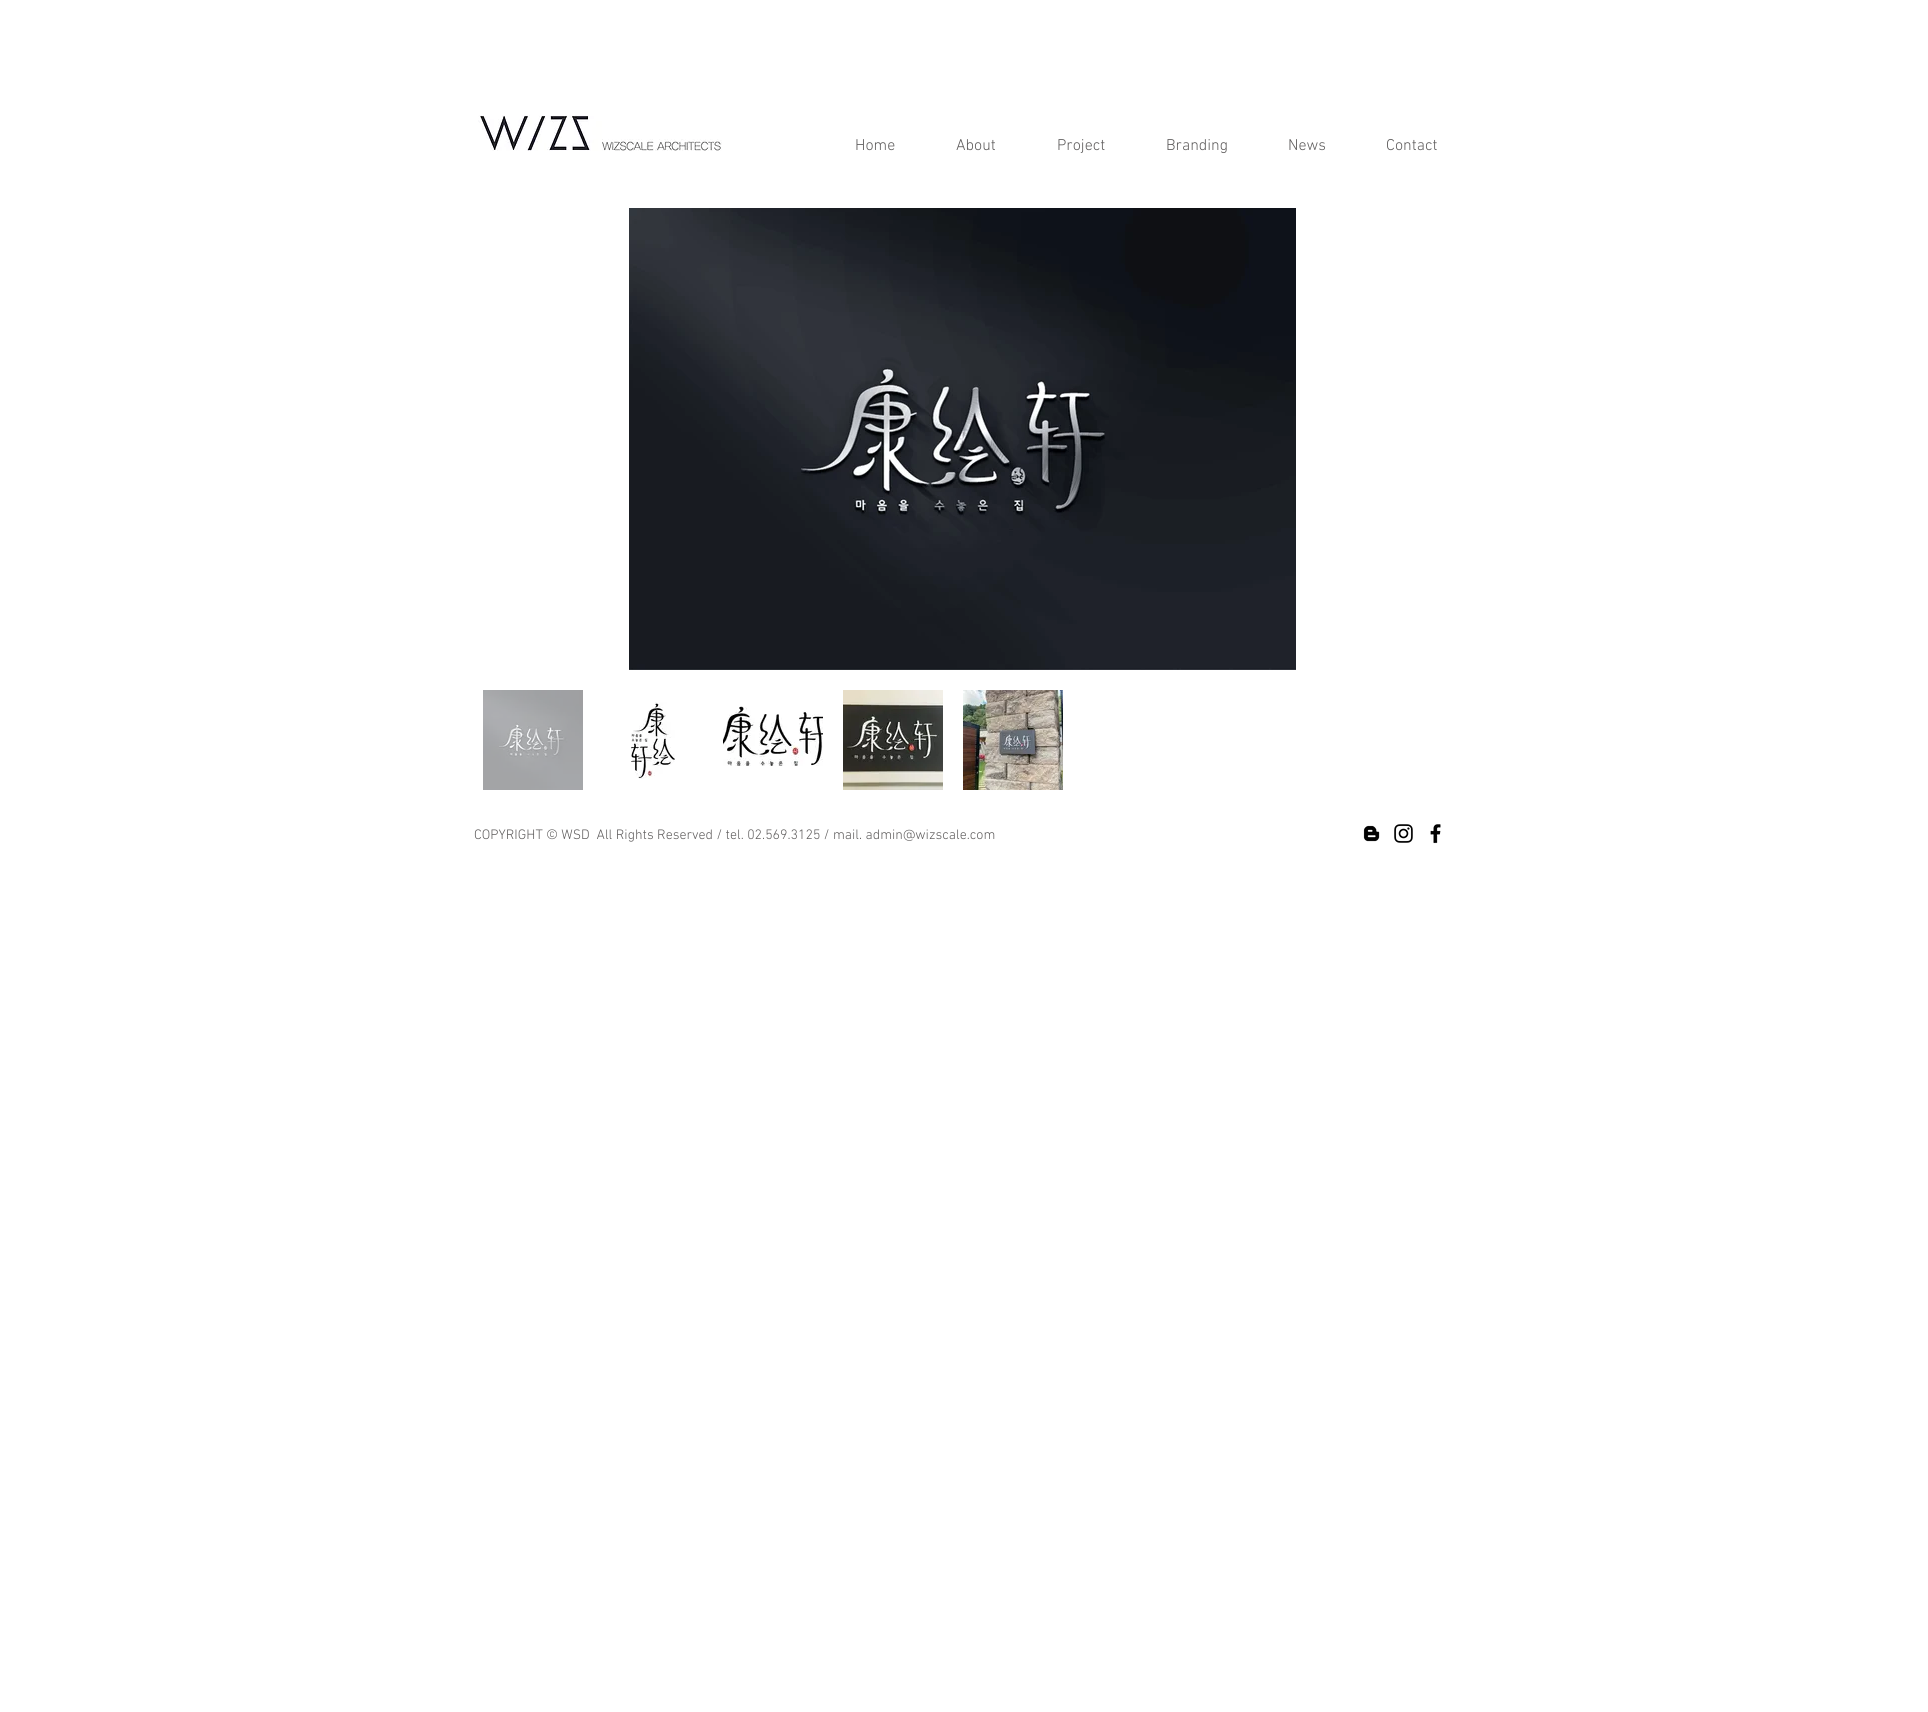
#include <cairo.h>
#include <math.h>
#include <stddef.h>


static void picture(cairo_t *cr, const char *path, double x, double y, double w, double h) {
    cairo_surface_t *image = cairo_image_surface_create_from_png(path);
    cairo_save(cr);
    cairo_set_source_surface(cr, image, x, y);
    cairo_rectangle(cr, x, y, w, h);
    cairo_fill(cr);
    cairo_restore(cr);
    cairo_surface_destroy(image);
}

int main(void) {
    cairo_surface_t *surface = cairo_image_surface_create(CAIRO_FORMAT_RGB24, 1928, 1712);
    cairo_t *cr = cairo_create(surface);
    cairo_font_options_t *options = cairo_font_options_create();
    cairo_font_options_set_hint_metrics(options, CAIRO_HINT_METRICS_OFF);
    cairo_font_options_set_hint_style(options, CAIRO_HINT_STYLE_NONE);
    cairo_set_font_options(cr, options);
    cairo_set_miter_limit(cr, 4);
    cairo_set_source_rgb(cr, 1, 1, 1);
    cairo_paint(cr);
    picture(cr, "img1.png", 478, 115, 244, 36);
    cairo_select_font_face(cr, "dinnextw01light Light", CAIRO_FONT_SLANT_NORMAL, CAIRO_FONT_WEIGHT_NORMAL);
    cairo_set_font_size(cr, 16);
    cairo_set_source_rgb(cr, 0.376, 0.369, 0.369);
    cairo_move_to(cr, 855, 150);
    cairo_show_text(cr, "Home");
    cairo_move_to(cr, 956, 150);
    cairo_show_text(cr, "About");
    cairo_move_to(cr, 1057, 150);
    cairo_show_text(cr, "Project");
    cairo_move_to(cr, 1166, 150);
    cairo_show_text(cr, "Branding");
    cairo_move_to(cr, 1288, 150);
    cairo_show_text(cr, "News");
    cairo_move_to(cr, 1386, 150);
    cairo_show_text(cr, "Contact");
    picture(cr, "img2.png", 629, 208, 667, 462);
    picture(cr, "img3.png", 483, 690, 100, 100);
    picture(cr, "img4.png", 631, 702, 44, 77);
    picture(cr, "img5.png", 723, 706, 100, 60);
    picture(cr, "img6.png", 843, 690, 100, 100);
    picture(cr, "img7.png", 963, 690, 100, 100);
    cairo_set_font_size(cr, 14);
    cairo_move_to(cr, 474, 839);
    cairo_show_text(cr, "COPYRIGHT © WSD  All Rights Reserved / tel. 02.569.3125 / mail. admin@wizscale.com");
    picture(cr, "img8.png", 1363, 825, 17, 17);
    picture(cr, "img9.png", 1394, 824, 19, 19);
    picture(cr, "img10.png", 1430, 824, 11, 20);
    cairo_surface_write_to_png(surface, "page.png");
    cairo_font_options_destroy(options);
    cairo_destroy(cr);
    cairo_surface_destroy(surface);
    return 0;
}
